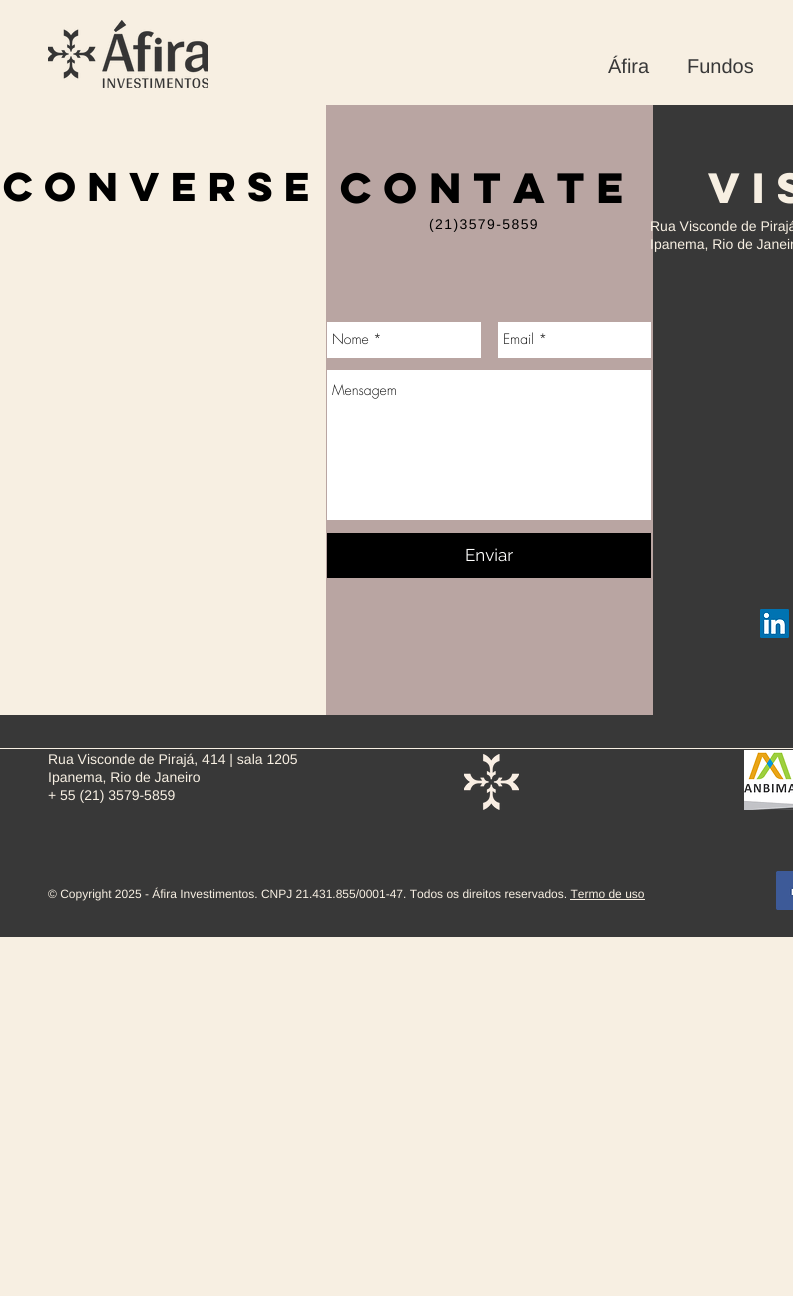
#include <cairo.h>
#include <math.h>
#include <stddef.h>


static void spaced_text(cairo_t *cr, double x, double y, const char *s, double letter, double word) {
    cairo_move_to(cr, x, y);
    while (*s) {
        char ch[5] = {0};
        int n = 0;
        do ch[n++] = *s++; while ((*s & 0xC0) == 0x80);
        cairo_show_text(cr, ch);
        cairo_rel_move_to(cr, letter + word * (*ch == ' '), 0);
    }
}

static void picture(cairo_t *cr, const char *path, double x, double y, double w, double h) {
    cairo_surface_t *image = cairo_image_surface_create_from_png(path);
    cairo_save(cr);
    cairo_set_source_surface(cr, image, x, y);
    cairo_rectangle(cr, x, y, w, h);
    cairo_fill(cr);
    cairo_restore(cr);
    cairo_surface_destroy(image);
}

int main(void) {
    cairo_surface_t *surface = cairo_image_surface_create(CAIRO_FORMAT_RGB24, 793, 1296);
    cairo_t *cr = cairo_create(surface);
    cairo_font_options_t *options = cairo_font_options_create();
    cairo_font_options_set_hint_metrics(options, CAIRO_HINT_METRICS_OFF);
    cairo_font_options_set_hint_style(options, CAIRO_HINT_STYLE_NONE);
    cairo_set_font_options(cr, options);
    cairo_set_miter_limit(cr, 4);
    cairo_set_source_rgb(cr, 0.965, 0.937, 0.886);
    cairo_paint(cr);
    picture(cr, "img1.png", 48, 20, 160, 68);
    cairo_select_font_face(cr, "Liberation Sans", CAIRO_FONT_SLANT_NORMAL, CAIRO_FONT_WEIGHT_NORMAL);
    cairo_set_font_size(cr, 20);
    cairo_set_source_rgb(cr, 0.22, 0.22, 0.22);
    cairo_move_to(cr, 608, 73);
    cairo_show_text(cr, "Áfira");
    cairo_move_to(cr, 687, 73);
    cairo_show_text(cr, "Fundos");
    cairo_select_font_face(cr, "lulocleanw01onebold", CAIRO_FONT_SLANT_NORMAL, CAIRO_FONT_WEIGHT_BOLD);
    cairo_set_font_size(cr, 36);
    cairo_set_source_rgb(cr, 0, 0, 0);
    spaced_text(cr, 3, 201, "converse", 3.5, 0);
    cairo_set_source_rgb(cr, 0.725, 0.647, 0.635);
    cairo_rectangle(cr, 326, 105, 327, 610);
    cairo_fill(cr);
    cairo_set_font_size(cr, 38);
    cairo_set_source_rgb(cr, 0, 0, 0);
    spaced_text(cr, 340, 203, "contate", 3.75, 0);
    cairo_select_font_face(cr, "Liberation Sans", CAIRO_FONT_SLANT_NORMAL, CAIRO_FONT_WEIGHT_NORMAL);
    cairo_set_font_size(cr, 14);
    spaced_text(cr, 429, 229, "(21)3579-5859", 1.4, 0);
    cairo_set_source_rgb(cr, 1, 1, 1);
    cairo_rectangle(cr, 327, 322, 154, 36);
    cairo_fill(cr);
    cairo_select_font_face(cr, "futura Light", CAIRO_FONT_SLANT_NORMAL, CAIRO_FONT_WEIGHT_NORMAL);
    cairo_set_source_rgb(cr, 0.059, 0.059, 0.059);
    cairo_move_to(cr, 332, 344);
    cairo_show_text(cr, "Nome *");
    cairo_set_source_rgb(cr, 1, 1, 1);
    cairo_rectangle(cr, 498, 322, 153, 36);
    cairo_fill(cr);
    cairo_set_source_rgb(cr, 0.059, 0.059, 0.059);
    cairo_move_to(cr, 503, 344);
    cairo_show_text(cr, "Email *");
    cairo_set_source_rgb(cr, 1, 1, 1);
    cairo_rectangle(cr, 327, 370, 324, 150);
    cairo_fill(cr);
    cairo_set_source_rgb(cr, 0.059, 0.059, 0.059);
    cairo_move_to(cr, 332, 395);
    cairo_show_text(cr, "Mensagem");
    cairo_set_source_rgb(cr, 0, 0, 0);
    cairo_rectangle(cr, 327, 533, 324, 45);
    cairo_fill(cr);
    cairo_select_font_face(cr, "Raleway", CAIRO_FONT_SLANT_NORMAL, CAIRO_FONT_WEIGHT_NORMAL);
    cairo_set_font_size(cr, 17);
    cairo_set_source_rgb(cr, 1, 1, 0.996);
    cairo_move_to(cr, 465, 561);
    cairo_show_text(cr, "Enviar");
    cairo_set_source_rgb(cr, 0.22, 0.22, 0.22);
    cairo_rectangle(cr, 653, 105, 140, 610);
    cairo_fill(cr);
    cairo_select_font_face(cr, "lulocleanw01onebold", CAIRO_FONT_SLANT_NORMAL, CAIRO_FONT_WEIGHT_BOLD);
    cairo_set_font_size(cr, 38);
    cairo_set_source_rgb(cr, 0.965, 0.937, 0.886);
    spaced_text(cr, 708, 203, "vis", 3.75, 0);
    cairo_select_font_face(cr, "Liberation Sans", CAIRO_FONT_SLANT_NORMAL, CAIRO_FONT_WEIGHT_NORMAL);
    cairo_set_font_size(cr, 14);
    cairo_move_to(cr, 650, 231);
    cairo_show_text(cr, "Rua Visconde de Pirajá");
    cairo_move_to(cr, 650, 249);
    cairo_show_text(cr, "Ipanema, Rio de Janeir");
    picture(cr, "img2.png", 760, 609, 29, 29);
    cairo_set_source_rgb(cr, 0.22, 0.22, 0.22);
    cairo_rectangle(cr, 0, 715, 793, 222);
    cairo_fill(cr);
    cairo_set_source_rgb(cr, 0.965, 0.937, 0.886);
    cairo_rectangle(cr, 0, 748, 793, 1);
    cairo_fill(cr);
    cairo_move_to(cr, 48, 764);
    cairo_show_text(cr, "Rua Visconde de Pirajá, 414 | sala 1205");
    cairo_move_to(cr, 48, 782);
    cairo_show_text(cr, "Ipanema, Rio de Janeiro");
    cairo_move_to(cr, 48, 800);
    cairo_show_text(cr, "+ 55 (21) 3579-5859");
    picture(cr, "img3.png", 464, 754, 55, 56);
    picture(cr, "img4.png", 744, 750, 49, 60);
    cairo_set_font_size(cr, 12);
    cairo_move_to(cr, 48, 898);
    cairo_show_text(cr, "© Copyright 2025 - Áfira Investimentos. CNPJ 21.431.855/0001-47. Todos os direitos reservados. Termo de uso");
    cairo_set_source_rgb(cr, 0.969, 0.937, 0.894);
    cairo_rectangle(cr, 570, 899, 75, 1);
    cairo_fill(cr);
    picture(cr, "img5.png", 776, 871, 17, 39);
    cairo_surface_write_to_png(surface, "page.png");
    cairo_font_options_destroy(options);
    cairo_destroy(cr);
    cairo_surface_destroy(surface);
    return 0;
}
